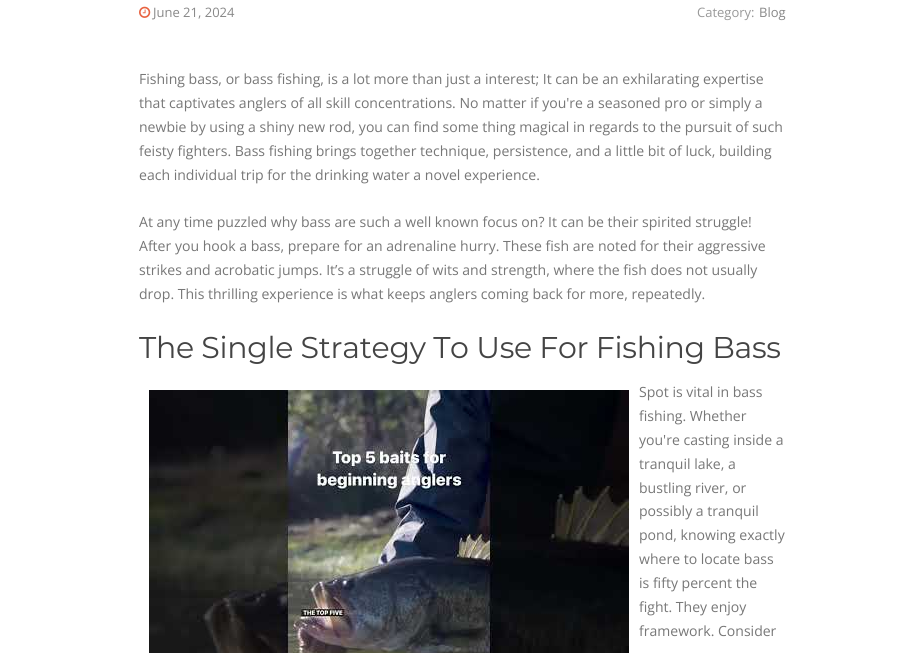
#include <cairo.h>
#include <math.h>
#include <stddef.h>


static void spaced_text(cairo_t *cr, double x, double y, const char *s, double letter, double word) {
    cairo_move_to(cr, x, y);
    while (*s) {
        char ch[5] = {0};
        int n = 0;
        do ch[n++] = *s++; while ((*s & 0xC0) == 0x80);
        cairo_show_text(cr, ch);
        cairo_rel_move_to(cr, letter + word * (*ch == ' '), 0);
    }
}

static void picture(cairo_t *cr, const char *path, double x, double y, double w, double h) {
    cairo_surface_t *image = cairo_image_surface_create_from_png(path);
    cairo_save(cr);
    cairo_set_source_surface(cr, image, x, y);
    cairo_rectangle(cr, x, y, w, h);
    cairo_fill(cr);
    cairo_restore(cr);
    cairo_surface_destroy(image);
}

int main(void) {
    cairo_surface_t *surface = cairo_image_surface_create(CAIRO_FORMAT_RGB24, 924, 653);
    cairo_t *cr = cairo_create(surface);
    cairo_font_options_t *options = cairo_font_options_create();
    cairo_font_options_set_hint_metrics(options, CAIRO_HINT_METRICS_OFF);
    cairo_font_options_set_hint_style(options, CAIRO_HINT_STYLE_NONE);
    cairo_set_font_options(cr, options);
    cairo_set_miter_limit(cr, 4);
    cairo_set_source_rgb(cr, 1, 1, 1);
    cairo_paint(cr);
    picture(cr, "img1.png", 139, 6, 12, 12);
    cairo_select_font_face(cr, "Open Sans", CAIRO_FONT_SLANT_NORMAL, CAIRO_FONT_WEIGHT_NORMAL);
    cairo_set_font_size(cr, 13);
    cairo_set_source_rgb(cr, 0.533, 0.533, 0.533);
    cairo_move_to(cr, 153, 17);
    cairo_show_text(cr, "June 21, 2024");
    cairo_set_source_rgb(cr, 0.6, 0.6, 0.6);
    cairo_move_to(cr, 697, 17);
    cairo_show_text(cr, "Category:");
    cairo_set_source_rgb(cr, 0.533, 0.533, 0.533);
    cairo_move_to(cr, 759, 17);
    cairo_show_text(cr, "Blog");
    cairo_set_font_size(cr, 14.05);
    cairo_set_source_rgb(cr, 0.467, 0.467, 0.467);
    cairo_move_to(cr, 139, 84);
    cairo_show_text(cr, "Fishing bass, or bass fishing, is a lot more than just a interest; It can be an exhilarating expertise");
    cairo_move_to(cr, 139, 108);
    cairo_show_text(cr, "that captivates anglers of all skill concentrations. No matter if you're a seasoned pro or simply a");
    cairo_move_to(cr, 139, 132);
    cairo_show_text(cr, "newbie by using a shiny new rod, you can find some thing magical in regards to the pursuit of such");
    cairo_move_to(cr, 139, 156);
    cairo_show_text(cr, "feisty fighters. Bass fishing brings together technique, persistence, and a little bit of luck, building");
    cairo_move_to(cr, 139, 180);
    cairo_show_text(cr, "each individual trip for the drinking water a novel experience.");
    cairo_move_to(cr, 139, 227);
    cairo_show_text(cr, "At any time puzzled why bass are such a well known focus on? It can be their spirited struggle!");
    cairo_move_to(cr, 139, 251);
    cairo_show_text(cr, "After you hook a bass, prepare for an adrenaline hurry. These fish are noted for their aggressive");
    cairo_move_to(cr, 139, 275);
    cairo_show_text(cr, "strikes and acrobatic jumps. It’s a struggle of wits and strength, where the fish does not usually");
    cairo_move_to(cr, 139, 299);
    cairo_show_text(cr, "drop. This thrilling experience is what keeps anglers coming back for more, repeatedly.");
    cairo_select_font_face(cr, "Montserrat", CAIRO_FONT_SLANT_NORMAL, CAIRO_FONT_WEIGHT_NORMAL);
    cairo_set_font_size(cr, 30);
    cairo_set_source_rgb(cr, 0.267, 0.267, 0.267);
    spaced_text(cr, 139, 358, "The Single Strategy To Use For Fishing Bass", -0.3, 0);
    picture(cr, "img2.png", 149, 390, 480, 263);
    cairo_select_font_face(cr, "Open Sans", CAIRO_FONT_SLANT_NORMAL, CAIRO_FONT_WEIGHT_NORMAL);
    cairo_set_font_size(cr, 14.05);
    cairo_set_source_rgb(cr, 0.467, 0.467, 0.467);
    cairo_move_to(cr, 639, 397);
    cairo_show_text(cr, "Spot is vital in bass");
    cairo_move_to(cr, 639, 421);
    cairo_show_text(cr, "fishing. Whether");
    cairo_move_to(cr, 639, 445);
    cairo_show_text(cr, "you're casting inside a");
    cairo_move_to(cr, 639, 469);
    cairo_show_text(cr, "tranquil lake, a");
    cairo_move_to(cr, 639, 493);
    cairo_show_text(cr, "bustling river, or");
    cairo_move_to(cr, 639, 516);
    cairo_show_text(cr, "possibly a tranquil");
    cairo_move_to(cr, 639, 540);
    cairo_show_text(cr, "pond, knowing exactly");
    cairo_move_to(cr, 639, 564);
    cairo_show_text(cr, "where to locate bass");
    cairo_move_to(cr, 639, 588);
    cairo_show_text(cr, "is fifty percent the");
    cairo_move_to(cr, 639, 612);
    cairo_show_text(cr, "fight. They enjoy");
    cairo_move_to(cr, 639, 636);
    cairo_show_text(cr, "framework. Consider");
    cairo_surface_write_to_png(surface, "page.png");
    cairo_font_options_destroy(options);
    cairo_destroy(cr);
    cairo_surface_destroy(surface);
    return 0;
}
